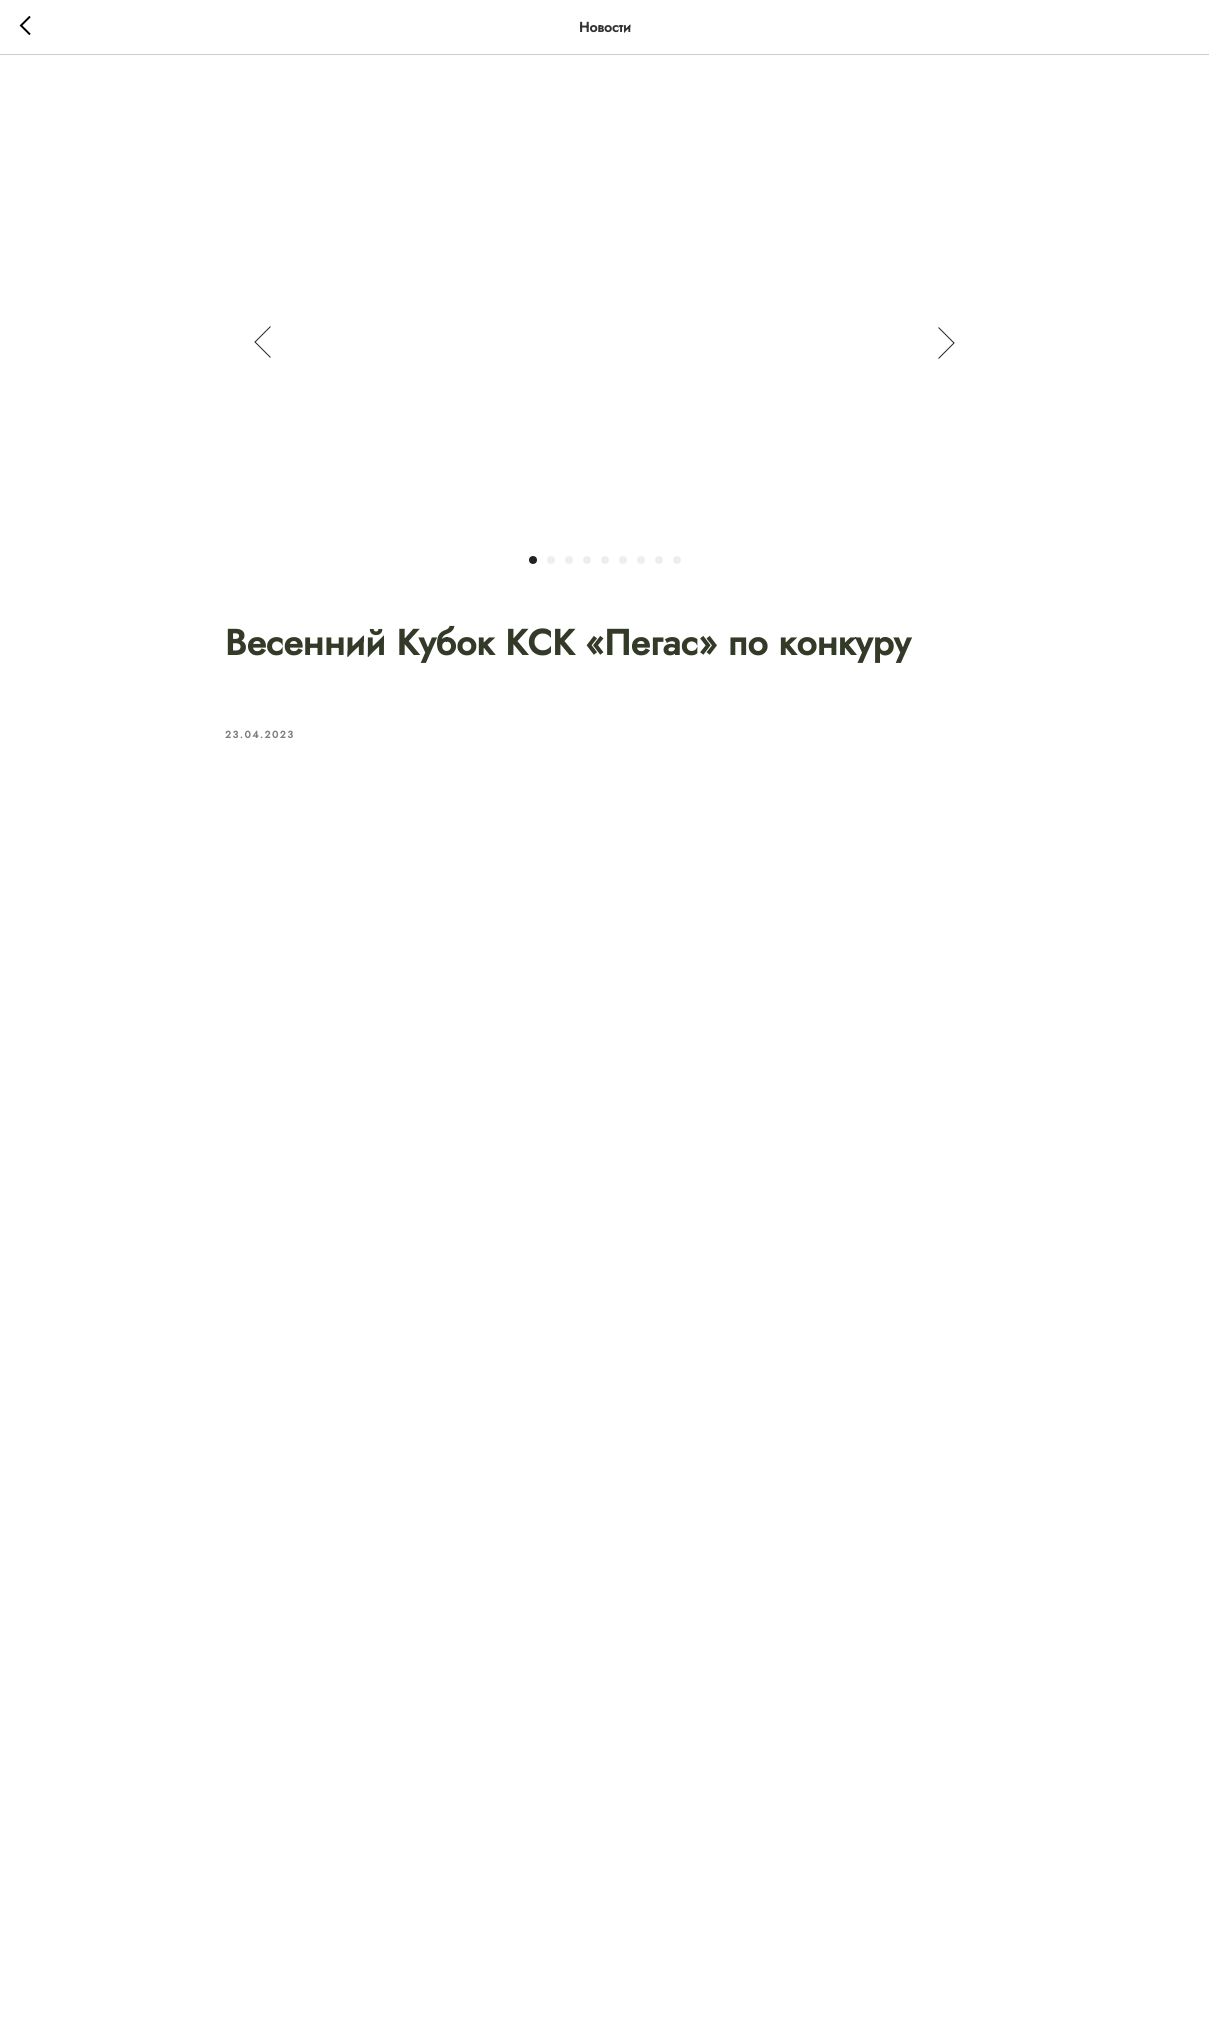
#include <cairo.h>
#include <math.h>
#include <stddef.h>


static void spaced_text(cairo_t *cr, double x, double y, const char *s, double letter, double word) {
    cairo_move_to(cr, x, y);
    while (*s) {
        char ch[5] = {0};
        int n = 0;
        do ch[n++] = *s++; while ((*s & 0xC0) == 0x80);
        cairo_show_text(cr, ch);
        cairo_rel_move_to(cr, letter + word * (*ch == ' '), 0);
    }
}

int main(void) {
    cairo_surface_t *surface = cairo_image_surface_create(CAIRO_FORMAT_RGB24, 1209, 2030);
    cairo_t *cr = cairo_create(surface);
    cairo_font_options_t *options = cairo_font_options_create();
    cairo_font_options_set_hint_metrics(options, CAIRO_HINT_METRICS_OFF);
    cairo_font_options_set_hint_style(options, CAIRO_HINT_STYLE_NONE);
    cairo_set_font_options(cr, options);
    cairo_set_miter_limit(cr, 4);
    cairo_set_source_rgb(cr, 1, 1, 1);
    cairo_paint(cr);
    cairo_set_source_rgb(cr, 0.8, 0.8, 0.8);
    cairo_rectangle(cr, 0, 54, 1209, 1);
    cairo_fill(cr);
    cairo_new_path(cr);
    cairo_move_to(cr, 30, 34.5);
    cairo_line_to(cr, 21, 25.5);
    cairo_line_to(cr, 30, 16.5);
    cairo_set_source_rgb(cr, 0, 0, 0);
    cairo_stroke(cr);
    cairo_select_font_face(cr, "Jost", CAIRO_FONT_SLANT_NORMAL, CAIRO_FONT_WEIGHT_BOLD);
    cairo_set_font_size(cr, 14);
    cairo_set_source_rgb(cr, 0.2, 0.2, 0.2);
    cairo_move_to(cr, 579, 32);
    cairo_show_text(cr, "Новости");
    cairo_new_path(cr);
    cairo_move_to(cr, 270.5, 357.5);
    cairo_line_to(cr, 255, 342);
    cairo_line_to(cr, 270.5, 326.5);
    cairo_set_source_rgb(cr, 0.133, 0.133, 0.133);
    cairo_set_line_width(cr, 1);
    cairo_stroke(cr);
    cairo_new_path(cr);
    cairo_move_to(cr, 938.5, 327.5);
    cairo_line_to(cr, 954, 343);
    cairo_line_to(cr, 938.5, 358.5);
    cairo_stroke(cr);
    cairo_arc(cr, 533, 560, 4, 0, 2 * M_PI);
    cairo_fill(cr);
    cairo_set_source_rgb(cr, 0.933, 0.933, 0.933);
    cairo_arc(cr, 551, 560, 4, 0, 2 * M_PI);
    cairo_fill(cr);
    cairo_arc(cr, 569, 560, 4, 0, 2 * M_PI);
    cairo_fill(cr);
    cairo_arc(cr, 587, 560, 4, 0, 2 * M_PI);
    cairo_fill(cr);
    cairo_arc(cr, 605, 560, 4, 0, 2 * M_PI);
    cairo_fill(cr);
    cairo_arc(cr, 623, 560, 4, 0, 2 * M_PI);
    cairo_fill(cr);
    cairo_arc(cr, 641, 560, 4, 0, 2 * M_PI);
    cairo_fill(cr);
    cairo_arc(cr, 659, 560, 4, 0, 2 * M_PI);
    cairo_fill(cr);
    cairo_arc(cr, 677, 560, 4, 0, 2 * M_PI);
    cairo_fill(cr);
    cairo_set_font_size(cr, 36);
    cairo_set_source_rgb(cr, 0.2, 0.227, 0.157);
    cairo_move_to(cr, 225, 655);
    cairo_show_text(cr, "Весенний Кубок КСК «Пегас» по конкуру");
    cairo_set_font_size(cr, 10);
    cairo_set_source_rgb(cr, 0.502, 0.502, 0.502);
    spaced_text(cr, 225, 738, "23.04.2023", 1.5, 0);
    cairo_surface_write_to_png(surface, "page.png");
    cairo_font_options_destroy(options);
    cairo_destroy(cr);
    cairo_surface_destroy(surface);
    return 0;
}
